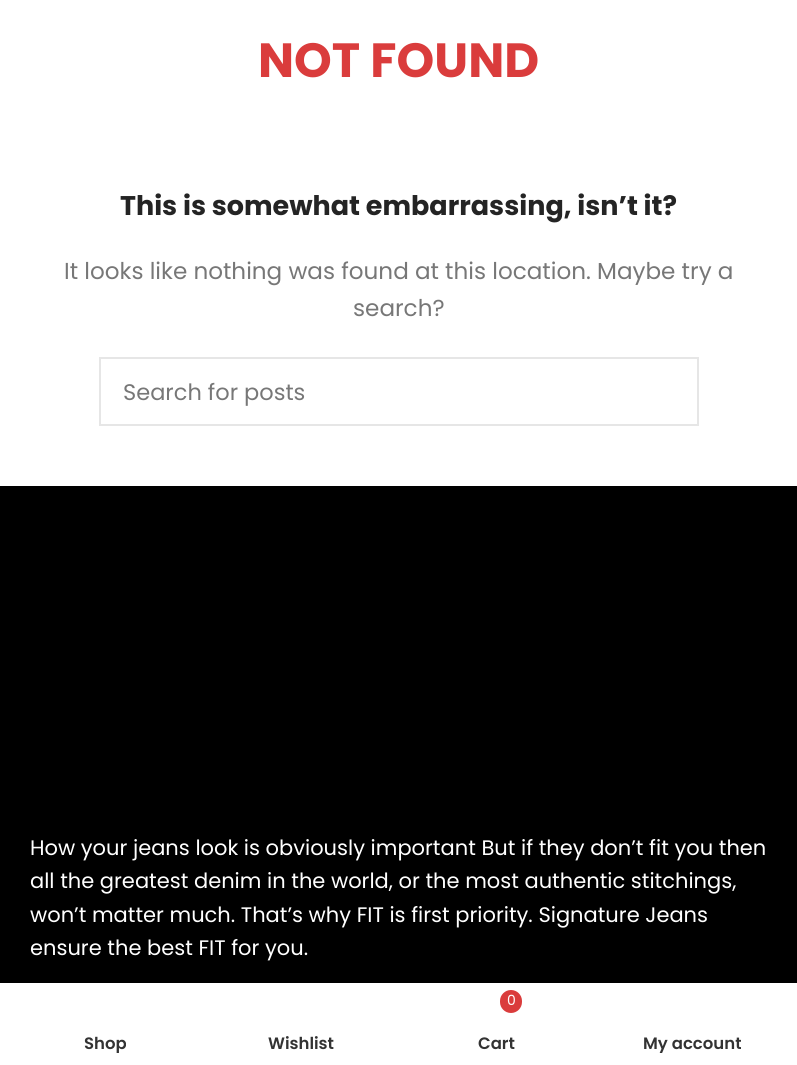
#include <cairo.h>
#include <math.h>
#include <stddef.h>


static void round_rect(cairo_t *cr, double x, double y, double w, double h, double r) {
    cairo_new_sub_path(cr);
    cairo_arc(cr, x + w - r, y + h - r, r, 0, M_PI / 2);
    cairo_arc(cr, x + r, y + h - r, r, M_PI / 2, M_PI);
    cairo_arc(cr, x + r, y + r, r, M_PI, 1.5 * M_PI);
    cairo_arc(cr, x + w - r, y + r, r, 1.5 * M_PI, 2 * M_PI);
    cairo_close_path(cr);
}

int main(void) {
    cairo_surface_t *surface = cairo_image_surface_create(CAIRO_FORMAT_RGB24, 797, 1065);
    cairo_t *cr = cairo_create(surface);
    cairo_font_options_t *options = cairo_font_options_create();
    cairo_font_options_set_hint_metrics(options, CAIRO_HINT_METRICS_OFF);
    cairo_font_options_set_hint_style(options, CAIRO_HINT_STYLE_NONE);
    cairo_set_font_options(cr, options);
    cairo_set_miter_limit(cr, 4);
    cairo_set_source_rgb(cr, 1, 1, 1);
    cairo_paint(cr);
    cairo_select_font_face(cr, "Poppins", CAIRO_FONT_SLANT_NORMAL, CAIRO_FONT_WEIGHT_BOLD);
    cairo_set_font_size(cr, 48);
    cairo_set_source_rgb(cr, 0.855, 0.235, 0.235);
    cairo_move_to(cr, 258, 77);
    cairo_show_text(cr, "NOT FOUND");
    cairo_set_font_size(cr, 27);
    cairo_set_source_rgb(cr, 0.141, 0.141, 0.141);
    cairo_move_to(cr, 120, 215);
    cairo_show_text(cr, "This is somewhat embarrassing, isn’t it?");
    cairo_select_font_face(cr, "Poppins", CAIRO_FONT_SLANT_NORMAL, CAIRO_FONT_WEIGHT_NORMAL);
    cairo_set_font_size(cr, 23.1);
    cairo_set_source_rgb(cr, 0.467, 0.467, 0.467);
    cairo_move_to(cr, 64, 279);
    cairo_show_text(cr, "It looks like nothing was found at this location. Maybe try a");
    cairo_move_to(cr, 353, 316);
    cairo_show_text(cr, "search?");
    cairo_rectangle(cr, 100, 358, 598, 67);
    cairo_set_source_rgb(cr, 0.902, 0.902, 0.902);
    cairo_stroke(cr);
    cairo_set_font_size(cr, 22.5);
    cairo_set_source_rgb(cr, 0.467, 0.467, 0.467);
    cairo_move_to(cr, 123, 400);
    cairo_show_text(cr, "Search for posts");
    cairo_set_source_rgb(cr, 0, 0, 0);
    cairo_rectangle(cr, 0, 486, 797, 497);
    cairo_fill(cr);
    cairo_set_font_size(cr, 21);
    cairo_set_source_rgb(cr, 1, 1, 1);
    cairo_move_to(cr, 30, 855);
    cairo_show_text(cr, "How your jeans look is obviously important But if they don’t fit you then");
    cairo_move_to(cr, 30, 888);
    cairo_show_text(cr, "all the greatest denim in the world, or the most authentic stitchings,");
    cairo_move_to(cr, 30, 922);
    cairo_show_text(cr, "won’t matter much. That’s why FIT is first priority. Signature Jeans");
    cairo_move_to(cr, 30, 955);
    cairo_show_text(cr, "ensure the best FIT for you.");
    cairo_save(cr);
    cairo_rectangle(cr, 23, 1034, 166, 19);
    cairo_clip(cr);
    cairo_select_font_face(cr, "Poppins SemiBold", CAIRO_FONT_SLANT_NORMAL, CAIRO_FONT_WEIGHT_NORMAL);
    cairo_set_font_size(cr, 16.5);
    cairo_set_source_rgb(cr, 0.2, 0.2, 0.2);
    cairo_move_to(cr, 84, 1049);
    cairo_show_text(cr, "Shop");
    cairo_restore(cr);
    cairo_select_font_face(cr, "Poppins SemiBold", CAIRO_FONT_SLANT_NORMAL, CAIRO_FONT_WEIGHT_NORMAL);
    cairo_set_font_size(cr, 16.5);
    cairo_set_source_rgb(cr, 0.2, 0.2, 0.2);
    cairo_move_to(cr, 268, 1049);
    cairo_show_text(cr, "Wishlist");
    cairo_set_source_rgb(cr, 0.855, 0.235, 0.235);
    round_rect(cr, 500, 990, 22, 23, 11);
    cairo_fill(cr);
    cairo_select_font_face(cr, "Poppins", CAIRO_FONT_SLANT_NORMAL, CAIRO_FONT_WEIGHT_NORMAL);
    cairo_set_font_size(cr, 14);
    cairo_set_source_rgb(cr, 1, 1, 1);
    cairo_move_to(cr, 507, 1005);
    cairo_show_text(cr, "0");
    cairo_select_font_face(cr, "Poppins SemiBold", CAIRO_FONT_SLANT_NORMAL, CAIRO_FONT_WEIGHT_NORMAL);
    cairo_set_font_size(cr, 16.5);
    cairo_set_source_rgb(cr, 0.2, 0.2, 0.2);
    cairo_move_to(cr, 478, 1049);
    cairo_show_text(cr, "Cart");
    cairo_save(cr);
    cairo_rectangle(cr, 611, 1034, 165, 19);
    cairo_clip(cr);
    cairo_move_to(cr, 643, 1049);
    cairo_show_text(cr, "My account");
    cairo_restore(cr);
    cairo_surface_write_to_png(surface, "page.png");
    cairo_font_options_destroy(options);
    cairo_destroy(cr);
    cairo_surface_destroy(surface);
    return 0;
}
